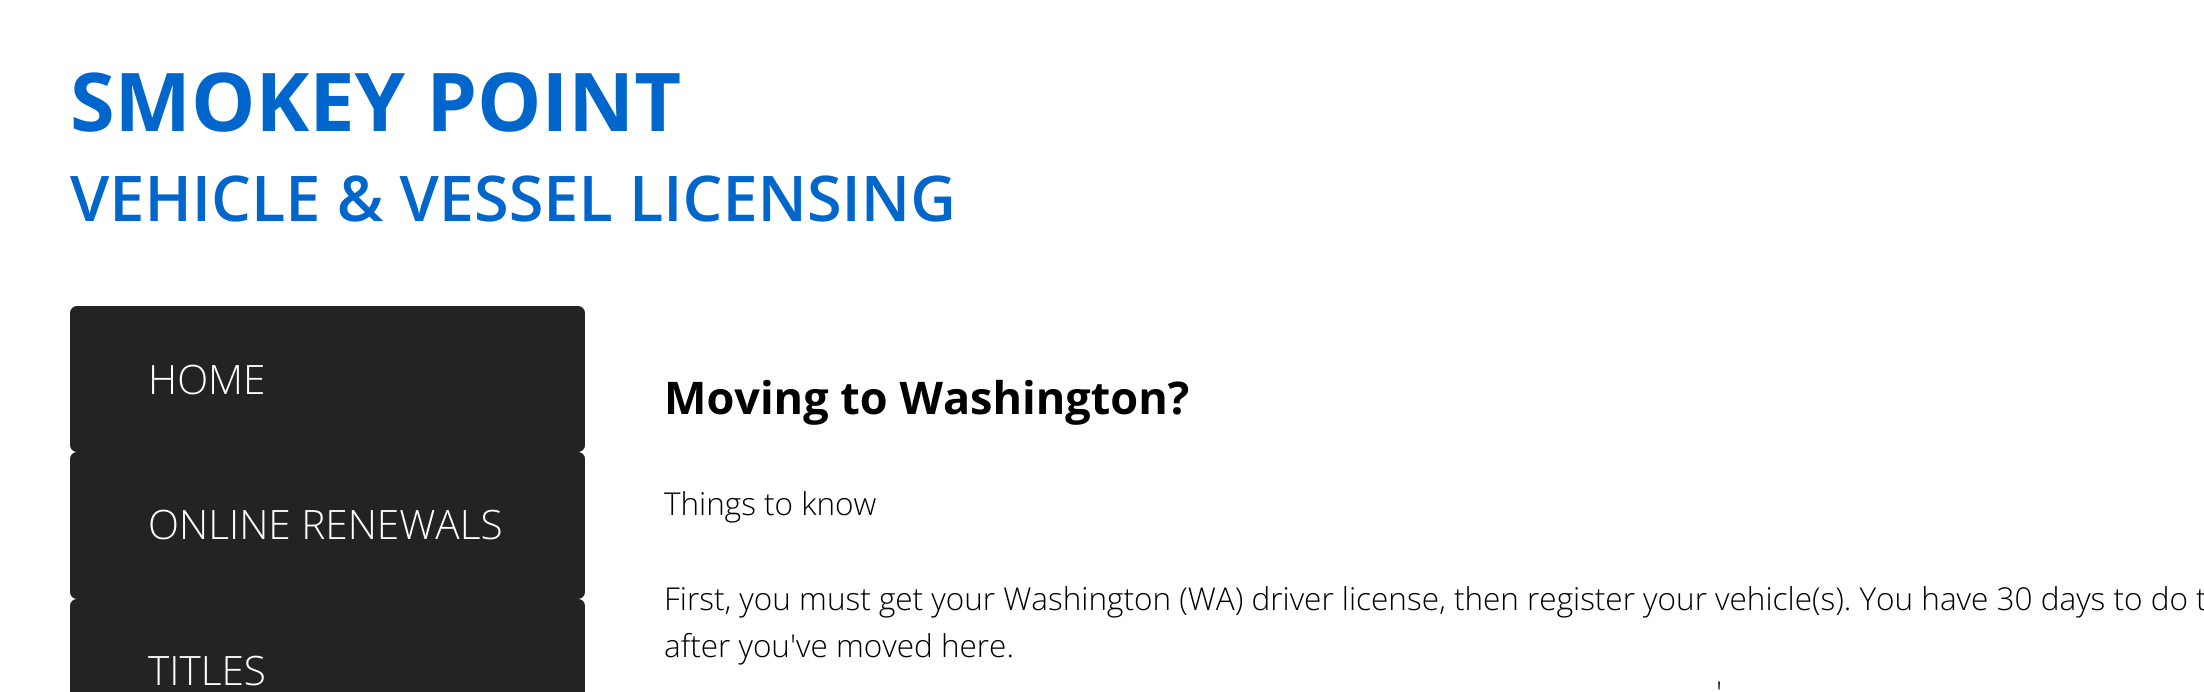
#include <cairo.h>
#include <math.h>
#include <stddef.h>


static void round_rect(cairo_t *cr, double x, double y, double w, double h, double r) {
    cairo_new_sub_path(cr);
    cairo_arc(cr, x + w - r, y + h - r, r, 0, M_PI / 2);
    cairo_arc(cr, x + r, y + h - r, r, M_PI / 2, M_PI);
    cairo_arc(cr, x + r, y + r, r, M_PI, 1.5 * M_PI);
    cairo_arc(cr, x + w - r, y + r, r, 1.5 * M_PI, 2 * M_PI);
    cairo_close_path(cr);
}

int main(void) {
    cairo_surface_t *surface = cairo_image_surface_create(CAIRO_FORMAT_RGB24, 2204, 692);
    cairo_t *cr = cairo_create(surface);
    cairo_font_options_t *options = cairo_font_options_create();
    cairo_font_options_set_hint_metrics(options, CAIRO_HINT_METRICS_OFF);
    cairo_font_options_set_hint_style(options, CAIRO_HINT_STYLE_NONE);
    cairo_set_font_options(cr, options);
    cairo_set_miter_limit(cr, 4);
    cairo_set_source_rgb(cr, 1, 1, 1);
    cairo_paint(cr);
    cairo_select_font_face(cr, "Open Sans", CAIRO_FONT_SLANT_NORMAL, CAIRO_FONT_WEIGHT_BOLD);
    cairo_set_font_size(cr, 81);
    cairo_set_source_rgb(cr, 0, 0.4, 0.8);
    cairo_move_to(cr, 70, 131);
    cairo_show_text(cr, "SMOKEY POINT");
    cairo_select_font_face(cr, "Open Sans SemiBold", CAIRO_FONT_SLANT_NORMAL, CAIRO_FONT_WEIGHT_NORMAL);
    cairo_set_font_size(cr, 63);
    cairo_move_to(cr, 70, 221);
    cairo_show_text(cr, "VEHICLE & VESSEL LICENSING");
    cairo_set_source_rgb(cr, 0.137, 0.137, 0.137);
    round_rect(cr, 70, 306, 515, 146, 7);
    cairo_fill(cr);
    cairo_select_font_face(cr, "Open Sans Light", CAIRO_FONT_SLANT_NORMAL, CAIRO_FONT_WEIGHT_NORMAL);
    cairo_set_font_size(cr, 40.5);
    cairo_set_source_rgb(cr, 1, 1, 1);
    cairo_move_to(cr, 148, 394);
    cairo_show_text(cr, "HOME");
    cairo_set_source_rgb(cr, 0.137, 0.137, 0.137);
    round_rect(cr, 70, 452, 515, 147, 7);
    cairo_fill(cr);
    cairo_set_source_rgb(cr, 1, 1, 1);
    cairo_move_to(cr, 148, 539);
    cairo_show_text(cr, "ONLINE RENEWALS");
    cairo_set_source_rgb(cr, 0.137, 0.137, 0.137);
    cairo_new_path(cr);
    cairo_move_to(cr, 77, 599);
    cairo_line_to(cr, 578, 599);
    cairo_curve_to(cr, 582, 599, 585, 602, 585, 606);
    cairo_line_to(cr, 585, 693);
    cairo_line_to(cr, 70, 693);
    cairo_line_to(cr, 70, 606);
    cairo_curve_to(cr, 70, 602, 73, 599, 77, 599);
    cairo_close_path(cr);
    cairo_fill(cr);
    cairo_set_source_rgb(cr, 1, 1, 1);
    cairo_move_to(cr, 148, 685);
    cairo_show_text(cr, "TITLES");
    cairo_select_font_face(cr, "Open Sans", CAIRO_FONT_SLANT_NORMAL, CAIRO_FONT_WEIGHT_BOLD);
    cairo_set_font_size(cr, 45);
    cairo_set_source_rgb(cr, 0, 0, 0);
    cairo_move_to(cr, 664, 414);
    cairo_show_text(cr, "Moving to Washington?");
    cairo_select_font_face(cr, "Open Sans Light", CAIRO_FONT_SLANT_NORMAL, CAIRO_FONT_WEIGHT_NORMAL);
    cairo_set_font_size(cr, 31.5);
    cairo_move_to(cr, 664, 515);
    cairo_show_text(cr, "Things to know");
    cairo_move_to(cr, 664, 610);
    cairo_show_text(cr, "First, you must get your Washington (WA) driver license, then register your vehicle(s). You have 30 days to do t");
    cairo_move_to(cr, 664, 657);
    cairo_show_text(cr, "after you've moved here.");
    cairo_move_to(cr, 1716, 704);
    cairo_show_text(cr, "'");
    cairo_surface_write_to_png(surface, "page.png");
    cairo_font_options_destroy(options);
    cairo_destroy(cr);
    cairo_surface_destroy(surface);
    return 0;
}
